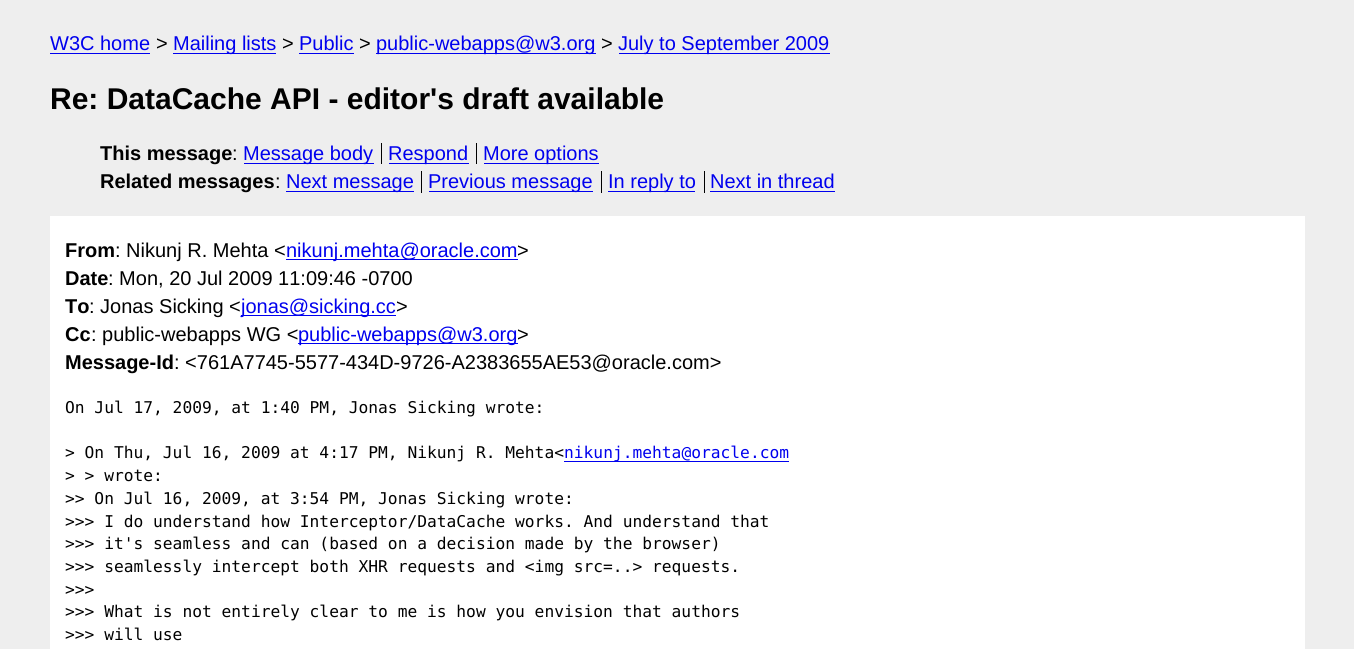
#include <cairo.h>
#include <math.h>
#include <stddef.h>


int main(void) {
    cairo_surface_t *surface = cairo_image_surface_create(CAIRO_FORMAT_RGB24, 1354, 649);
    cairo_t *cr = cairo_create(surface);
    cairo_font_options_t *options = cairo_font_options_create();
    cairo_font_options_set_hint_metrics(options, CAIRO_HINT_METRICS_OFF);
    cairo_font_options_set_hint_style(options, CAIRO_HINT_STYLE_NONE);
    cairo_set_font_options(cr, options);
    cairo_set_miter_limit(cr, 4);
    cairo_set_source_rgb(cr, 0.933, 0.933, 0.933);
    cairo_paint(cr);
    cairo_select_font_face(cr, "Liberation Sans", CAIRO_FONT_SLANT_NORMAL, CAIRO_FONT_WEIGHT_NORMAL);
    cairo_set_font_size(cr, 20);
    cairo_set_source_rgb(cr, 0, 0, 0.933);
    cairo_move_to(cr, 50, 50);
    cairo_show_text(cr, "W3C home");
    cairo_rectangle(cr, 50, 53, 100, 1);
    cairo_fill(cr);
    cairo_set_source_rgb(cr, 0, 0, 0);
    cairo_move_to(cr, 156, 50);
    cairo_show_text(cr, ">");
    cairo_set_source_rgb(cr, 0, 0, 0.933);
    cairo_rectangle(cr, 173, 53, 103, 1);
    cairo_fill(cr);
    cairo_move_to(cr, 173, 50);
    cairo_show_text(cr, "Mailing lists");
    cairo_set_source_rgb(cr, 0, 0, 0);
    cairo_move_to(cr, 282, 50);
    cairo_show_text(cr, ">");
    cairo_set_source_rgb(cr, 0, 0, 0.933);
    cairo_move_to(cr, 299, 50);
    cairo_show_text(cr, "Public");
    cairo_rectangle(cr, 299, 53, 55, 1);
    cairo_fill(cr);
    cairo_set_source_rgb(cr, 0, 0, 0);
    cairo_move_to(cr, 359, 50);
    cairo_show_text(cr, ">");
    cairo_set_source_rgb(cr, 0, 0, 0.933);
    cairo_rectangle(cr, 376, 53, 220, 1);
    cairo_fill(cr);
    cairo_move_to(cr, 376, 50);
    cairo_show_text(cr, "public-webapps@w3.org");
    cairo_set_source_rgb(cr, 0, 0, 0);
    cairo_move_to(cr, 601, 50);
    cairo_show_text(cr, ">");
    cairo_set_source_rgb(cr, 0, 0, 0.933);
    cairo_rectangle(cr, 619, 53, 211, 1);
    cairo_fill(cr);
    cairo_move_to(cr, 618, 50);
    cairo_show_text(cr, "July to September 2009");
    cairo_select_font_face(cr, "Liberation Sans", CAIRO_FONT_SLANT_NORMAL, CAIRO_FONT_WEIGHT_BOLD);
    cairo_set_font_size(cr, 30);
    cairo_set_source_rgb(cr, 0, 0, 0);
    cairo_move_to(cr, 50, 109);
    cairo_show_text(cr, "Re: DataCache API - editor's draft available");
    cairo_set_font_size(cr, 20);
    cairo_move_to(cr, 100, 160);
    cairo_show_text(cr, "This message");
    cairo_select_font_face(cr, "Liberation Sans", CAIRO_FONT_SLANT_NORMAL, CAIRO_FONT_WEIGHT_NORMAL);
    cairo_move_to(cr, 232, 160);
    cairo_show_text(cr, ":");
    cairo_set_source_rgb(cr, 0, 0, 0.933);
    cairo_rectangle(cr, 244, 163, 130, 1);
    cairo_fill(cr);
    cairo_move_to(cr, 243, 160);
    cairo_show_text(cr, "Message body");
    cairo_set_source_rgb(cr, 0, 0, 0);
    cairo_rectangle(cr, 381, 143, 1, 21);
    cairo_fill(cr);
    cairo_set_source_rgb(cr, 0, 0, 0.933);
    cairo_rectangle(cr, 389, 163, 80, 1);
    cairo_fill(cr);
    cairo_move_to(cr, 388, 160);
    cairo_show_text(cr, "Respond");
    cairo_rectangle(cr, 484, 163, 115, 1);
    cairo_fill(cr);
    cairo_move_to(cr, 483, 160);
    cairo_show_text(cr, "More options");
    cairo_set_source_rgb(cr, 0, 0, 0);
    cairo_rectangle(cr, 476, 143, 1, 21);
    cairo_fill(cr);
    cairo_select_font_face(cr, "Liberation Sans", CAIRO_FONT_SLANT_NORMAL, CAIRO_FONT_WEIGHT_BOLD);
    cairo_move_to(cr, 100, 188);
    cairo_show_text(cr, "Related messages");
    cairo_select_font_face(cr, "Liberation Sans", CAIRO_FONT_SLANT_NORMAL, CAIRO_FONT_WEIGHT_NORMAL);
    cairo_move_to(cr, 275, 188);
    cairo_show_text(cr, ":");
    cairo_set_source_rgb(cr, 0, 0, 0.933);
    cairo_rectangle(cr, 286, 191, 128, 1);
    cairo_fill(cr);
    cairo_move_to(cr, 286, 188);
    cairo_show_text(cr, "Next message");
    cairo_rectangle(cr, 429, 191, 164, 1);
    cairo_fill(cr);
    cairo_move_to(cr, 428, 188);
    cairo_show_text(cr, "Previous message");
    cairo_set_source_rgb(cr, 0, 0, 0);
    cairo_rectangle(cr, 421, 171, 1, 22);
    cairo_fill(cr);
    cairo_set_source_rgb(cr, 0, 0, 0.933);
    cairo_rectangle(cr, 608, 191, 87, 1);
    cairo_fill(cr);
    cairo_move_to(cr, 608, 188);
    cairo_show_text(cr, "In reply to");
    cairo_set_source_rgb(cr, 0, 0, 0);
    cairo_rectangle(cr, 601, 171, 1, 22);
    cairo_fill(cr);
    cairo_set_source_rgb(cr, 0, 0, 0.933);
    cairo_move_to(cr, 710, 188);
    cairo_show_text(cr, "Next in thread");
    cairo_set_source_rgb(cr, 0, 0, 0);
    cairo_rectangle(cr, 704, 171, 1, 22);
    cairo_fill(cr);
    cairo_set_source_rgb(cr, 0, 0, 0.933);
    cairo_rectangle(cr, 710, 191, 125, 1);
    cairo_fill(cr);
    cairo_set_source_rgb(cr, 1, 1, 1);
    cairo_rectangle(cr, 50, 216, 1255, 433);
    cairo_fill(cr);
    cairo_select_font_face(cr, "Liberation Sans", CAIRO_FONT_SLANT_NORMAL, CAIRO_FONT_WEIGHT_BOLD);
    cairo_set_source_rgb(cr, 0, 0, 0);
    cairo_move_to(cr, 65, 257);
    cairo_show_text(cr, "From");
    cairo_select_font_face(cr, "Liberation Sans", CAIRO_FONT_SLANT_NORMAL, CAIRO_FONT_WEIGHT_NORMAL);
    cairo_move_to(cr, 115, 257);
    cairo_show_text(cr, ": Nikunj R. Mehta <");
    cairo_set_source_rgb(cr, 0, 0, 0.933);
    cairo_rectangle(cr, 286, 259, 232, 1);
    cairo_fill(cr);
    cairo_move_to(cr, 286, 257);
    cairo_show_text(cr, "nikunj.mehta@oracle.com");
    cairo_set_source_rgb(cr, 0, 0, 0);
    cairo_move_to(cr, 517, 257);
    cairo_show_text(cr, ">");
    cairo_select_font_face(cr, "Liberation Sans", CAIRO_FONT_SLANT_NORMAL, CAIRO_FONT_WEIGHT_BOLD);
    cairo_move_to(cr, 65, 285);
    cairo_show_text(cr, "Date");
    cairo_select_font_face(cr, "Liberation Sans", CAIRO_FONT_SLANT_NORMAL, CAIRO_FONT_WEIGHT_NORMAL);
    cairo_move_to(cr, 108, 285);
    cairo_show_text(cr, ": Mon, 20 Jul 2009 11:09:46 -0700");
    cairo_select_font_face(cr, "Liberation Sans", CAIRO_FONT_SLANT_NORMAL, CAIRO_FONT_WEIGHT_BOLD);
    cairo_move_to(cr, 65, 313);
    cairo_show_text(cr, "To");
    cairo_select_font_face(cr, "Liberation Sans", CAIRO_FONT_SLANT_NORMAL, CAIRO_FONT_WEIGHT_NORMAL);
    cairo_move_to(cr, 89, 313);
    cairo_show_text(cr, ": Jonas Sicking <");
    cairo_set_source_rgb(cr, 0, 0, 0.933);
    cairo_rectangle(cr, 241, 315, 155, 1);
    cairo_fill(cr);
    cairo_move_to(cr, 241, 313);
    cairo_show_text(cr, "jonas@sicking.cc");
    cairo_set_source_rgb(cr, 0, 0, 0);
    cairo_move_to(cr, 396, 313);
    cairo_show_text(cr, ">");
    cairo_select_font_face(cr, "Liberation Sans", CAIRO_FONT_SLANT_NORMAL, CAIRO_FONT_WEIGHT_BOLD);
    cairo_move_to(cr, 65, 341);
    cairo_show_text(cr, "Cc");
    cairo_select_font_face(cr, "Liberation Sans", CAIRO_FONT_SLANT_NORMAL, CAIRO_FONT_WEIGHT_NORMAL);
    cairo_move_to(cr, 91, 341);
    cairo_show_text(cr, ": public-webapps WG <");
    cairo_set_source_rgb(cr, 0, 0, 0.933);
    cairo_rectangle(cr, 298, 343, 220, 1);
    cairo_fill(cr);
    cairo_move_to(cr, 298, 341);
    cairo_show_text(cr, "public-webapps@w3.org");
    cairo_set_source_rgb(cr, 0, 0, 0);
    cairo_move_to(cr, 517, 341);
    cairo_show_text(cr, ">");
    cairo_select_font_face(cr, "Liberation Sans", CAIRO_FONT_SLANT_NORMAL, CAIRO_FONT_WEIGHT_BOLD);
    cairo_move_to(cr, 65, 369);
    cairo_show_text(cr, "Message-Id");
    cairo_select_font_face(cr, "Liberation Sans", CAIRO_FONT_SLANT_NORMAL, CAIRO_FONT_WEIGHT_NORMAL);
    cairo_move_to(cr, 174, 369);
    cairo_show_text(cr, ": <761A7745-5577-434D-9726-A2383655AE53@oracle.com>");
    cairo_select_font_face(cr, "DejaVu Sans Mono", CAIRO_FONT_SLANT_NORMAL, CAIRO_FONT_WEIGHT_NORMAL);
    cairo_set_font_size(cr, 16.25);
    cairo_move_to(cr, 65, 413);
    cairo_show_text(cr, "On Jul 17, 2009, at 1:40 PM, Jonas Sicking wrote:");
    cairo_move_to(cr, 65, 458);
    cairo_show_text(cr, "> On Thu, Jul 16, 2009 at 4:17 PM, Nikunj R. Mehta<");
    cairo_set_source_rgb(cr, 0, 0, 0.933);
    cairo_rectangle(cr, 564, 461, 225, 1);
    cairo_fill(cr);
    cairo_move_to(cr, 564, 458);
    cairo_show_text(cr, "nikunj.mehta@oracle.com");
    cairo_set_source_rgb(cr, 0, 0, 0);
    cairo_move_to(cr, 65, 481);
    cairo_show_text(cr, "> > wrote:");
    cairo_move_to(cr, 65, 504);
    cairo_show_text(cr, ">> On Jul 16, 2009, at 3:54 PM, Jonas Sicking wrote:");
    cairo_move_to(cr, 65, 527);
    cairo_show_text(cr, ">>> I do understand how Interceptor/DataCache works. And understand that");
    cairo_move_to(cr, 65, 549);
    cairo_show_text(cr, ">>> it's seamless and can (based on a decision made by the browser)");
    cairo_move_to(cr, 65, 572);
    cairo_show_text(cr, ">>> seamlessly intercept both XHR requests and <img src=..> requests.");
    cairo_move_to(cr, 65, 595);
    cairo_show_text(cr, ">>>");
    cairo_move_to(cr, 65, 617);
    cairo_show_text(cr, ">>> What is not entirely clear to me is how you envision that authors");
    cairo_move_to(cr, 65, 640);
    cairo_show_text(cr, ">>> will use");
    cairo_surface_write_to_png(surface, "page.png");
    cairo_font_options_destroy(options);
    cairo_destroy(cr);
    cairo_surface_destroy(surface);
    return 0;
}
